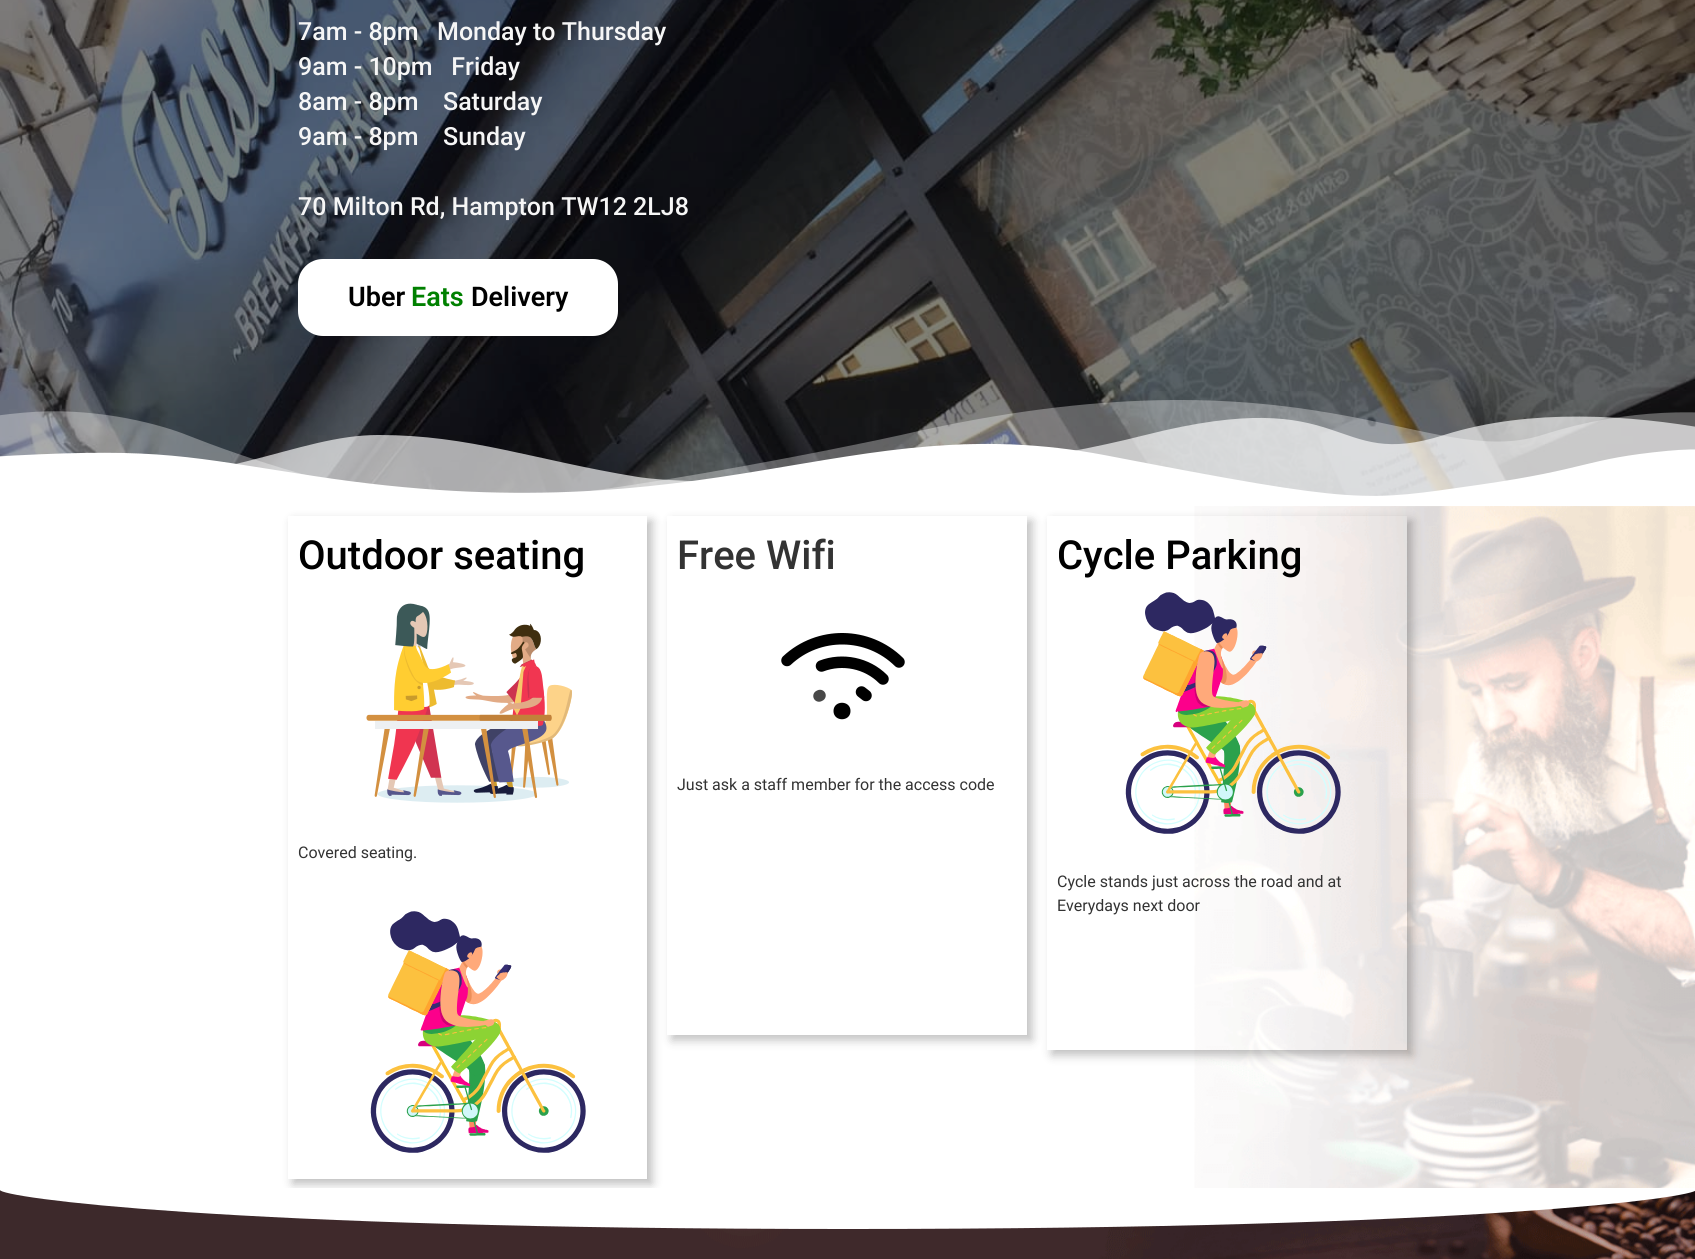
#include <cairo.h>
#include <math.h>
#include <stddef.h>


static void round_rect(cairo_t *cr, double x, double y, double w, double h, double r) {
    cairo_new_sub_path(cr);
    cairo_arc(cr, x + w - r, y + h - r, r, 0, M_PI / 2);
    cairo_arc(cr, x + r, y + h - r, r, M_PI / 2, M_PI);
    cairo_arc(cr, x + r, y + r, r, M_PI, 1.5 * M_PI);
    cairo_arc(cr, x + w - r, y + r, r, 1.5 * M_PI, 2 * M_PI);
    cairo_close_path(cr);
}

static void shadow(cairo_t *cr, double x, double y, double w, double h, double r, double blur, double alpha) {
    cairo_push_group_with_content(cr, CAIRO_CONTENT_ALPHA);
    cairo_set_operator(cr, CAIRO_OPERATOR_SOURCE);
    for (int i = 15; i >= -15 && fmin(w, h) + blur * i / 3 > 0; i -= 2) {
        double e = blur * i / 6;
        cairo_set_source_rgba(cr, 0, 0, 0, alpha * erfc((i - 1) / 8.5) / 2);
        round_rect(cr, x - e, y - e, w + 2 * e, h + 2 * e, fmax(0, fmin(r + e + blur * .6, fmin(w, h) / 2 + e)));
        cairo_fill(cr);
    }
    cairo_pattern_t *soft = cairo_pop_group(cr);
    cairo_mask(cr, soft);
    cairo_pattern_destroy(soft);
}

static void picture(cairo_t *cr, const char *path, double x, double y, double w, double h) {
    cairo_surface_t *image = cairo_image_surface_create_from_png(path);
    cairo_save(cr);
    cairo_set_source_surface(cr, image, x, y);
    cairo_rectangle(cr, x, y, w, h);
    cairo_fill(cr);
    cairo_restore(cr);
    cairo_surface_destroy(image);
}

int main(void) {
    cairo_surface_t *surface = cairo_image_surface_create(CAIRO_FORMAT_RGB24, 1695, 1259);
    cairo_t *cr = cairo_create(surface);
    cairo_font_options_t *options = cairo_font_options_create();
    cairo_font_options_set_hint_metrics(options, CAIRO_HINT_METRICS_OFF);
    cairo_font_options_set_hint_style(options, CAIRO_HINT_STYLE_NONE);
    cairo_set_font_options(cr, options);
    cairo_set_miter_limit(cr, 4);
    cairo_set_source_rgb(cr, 0.239, 0.161, 0.169);
    cairo_paint(cr);
    picture(cr, "img1.png", 0, 0, 1695, 496);
    cairo_select_font_face(cr, "Roboto Medium", CAIRO_FONT_SLANT_NORMAL, CAIRO_FONT_WEIGHT_NORMAL);
    cairo_set_font_size(cr, 25);
    cairo_set_source_rgb(cr, 0.961, 0.961, 0.961);
    cairo_move_to(cr, 298, 40);
    cairo_show_text(cr, "7am - 8pm   Monday to Thursday");
    cairo_move_to(cr, 298, 75);
    cairo_show_text(cr, "9am - 10pm   Friday");
    cairo_move_to(cr, 298, 110);
    cairo_show_text(cr, "8am - 8pm");
    cairo_move_to(cr, 443, 110);
    cairo_show_text(cr, "Saturday");
    cairo_move_to(cr, 298, 145);
    cairo_show_text(cr, "9am - 8pm");
    cairo_move_to(cr, 443, 145);
    cairo_show_text(cr, "Sunday");
    cairo_move_to(cr, 298, 215);
    cairo_show_text(cr, "70 Milton Rd, Hampton TW12 2LJ8");
    cairo_set_source_rgb(cr, 1, 1, 1);
    round_rect(cr, 298, 259, 320, 77, 25);
    cairo_fill(cr);
    cairo_select_font_face(cr, "Roboto SemiBold", CAIRO_FONT_SLANT_NORMAL, CAIRO_FONT_WEIGHT_NORMAL);
    cairo_set_font_size(cr, 27);
    cairo_set_source_rgb(cr, 0, 0, 0);
    cairo_move_to(cr, 348, 306);
    cairo_show_text(cr, "Uber");
    cairo_set_source_rgb(cr, 0, 0.502, 0);
    cairo_move_to(cr, 411, 306);
    cairo_show_text(cr, "Eats");
    cairo_set_source_rgb(cr, 0, 0, 0);
    cairo_move_to(cr, 471, 306);
    cairo_show_text(cr, "Delivery");
    picture(cr, "img2.png", 0, 400, 1695, 106);
    picture(cr, "img3.png", 0, 506, 1695, 682);
    cairo_save(cr);
    cairo_set_fill_rule(cr, CAIRO_FILL_RULE_EVEN_ODD);
    cairo_new_path(cr);
    cairo_move_to(cr, 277, 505);
    cairo_line_to(cr, 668, 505);
    cairo_line_to(cr, 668, 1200);
    cairo_line_to(cr, 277, 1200);
    cairo_close_path(cr);
    cairo_move_to(cr, 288, 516);
    cairo_line_to(cr, 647, 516);
    cairo_line_to(cr, 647, 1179);
    cairo_line_to(cr, 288, 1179);
    cairo_close_path(cr);
    cairo_clip(cr);
    cairo_set_source_rgb(cr, 0, 0, 0);
    shadow(cr, 293, 521, 359, 663, 0, 5, 0.26);
    cairo_restore(cr);
    cairo_select_font_face(cr, "Roboto Medium", CAIRO_FONT_SLANT_NORMAL, CAIRO_FONT_WEIGHT_NORMAL);
    cairo_set_font_size(cr, 40);
    cairo_move_to(cr, 298, 569);
    cairo_show_text(cr, "Outdoor seating");
    picture(cr, "img4.png", 366, 603, 206, 200);
    cairo_select_font_face(cr, "Roboto", CAIRO_FONT_SLANT_NORMAL, CAIRO_FONT_WEIGHT_NORMAL);
    cairo_set_font_size(cr, 16);
    cairo_set_source_rgb(cr, 0.2, 0.2, 0.2);
    cairo_move_to(cr, 298, 858);
    cairo_show_text(cr, "Covered seating.");
    picture(cr, "img5.png", 370, 911, 216, 242);
    cairo_save(cr);
    cairo_set_fill_rule(cr, CAIRO_FILL_RULE_EVEN_ODD);
    cairo_new_path(cr);
    cairo_move_to(cr, 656, 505);
    cairo_line_to(cr, 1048, 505);
    cairo_line_to(cr, 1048, 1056);
    cairo_line_to(cr, 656, 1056);
    cairo_close_path(cr);
    cairo_move_to(cr, 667, 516);
    cairo_line_to(cr, 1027, 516);
    cairo_line_to(cr, 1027, 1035);
    cairo_line_to(cr, 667, 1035);
    cairo_close_path(cr);
    cairo_clip(cr);
    cairo_set_source_rgb(cr, 0, 0, 0);
    shadow(cr, 672, 521, 360, 519, 0, 5, 0.25);
    cairo_restore(cr);
    cairo_select_font_face(cr, "Roboto Medium", CAIRO_FONT_SLANT_NORMAL, CAIRO_FONT_WEIGHT_NORMAL);
    cairo_set_font_size(cr, 40);
    cairo_move_to(cr, 677, 569);
    cairo_show_text(cr, "Free Wifi");
    cairo_set_source_rgb(cr, 0, 0, 0);
    cairo_new_path(cr);
    cairo_move_to(cr, 850.5, 711);
    cairo_curve_to(cr, 850.5, 722, 833.5, 722, 833.5, 711);
    cairo_curve_to(cr, 833.5, 700, 850.5, 700, 850.5, 711);
    cairo_close_path(cr);
    cairo_fill(cr);
    cairo_new_path(cr);
    cairo_move_to(cr, 861.5, 692);
    cairo_line_to(cr, 866, 695.5);
    cairo_set_line_width(cr, 11.5);
    cairo_set_line_cap(cr, CAIRO_LINE_CAP_ROUND);
    cairo_stroke(cr);
    cairo_new_path(cr);
    cairo_move_to(cr, 821.5, 666);
    cairo_curve_to(cr, 842.5, 658, 867, 663, 883, 679);
    cairo_stroke(cr);
    cairo_new_path(cr);
    cairo_move_to(cr, 787, 660.5);
    cairo_curve_to(cr, 818.5, 631, 868, 631.5, 899, 662);
    cairo_stroke(cr);
    cairo_new_path(cr);
    cairo_move_to(cr, 819, 696);
    cairo_line_to(cr, 820, 695.5);
    cairo_set_source_rgb(cr, 0.282, 0.282, 0.282);
    cairo_stroke(cr);
    cairo_select_font_face(cr, "Roboto", CAIRO_FONT_SLANT_NORMAL, CAIRO_FONT_WEIGHT_NORMAL);
    cairo_set_font_size(cr, 16);
    cairo_set_source_rgb(cr, 0.2, 0.2, 0.2);
    cairo_move_to(cr, 677, 790);
    cairo_show_text(cr, "Just ask a staff member for the access code");
    cairo_save(cr);
    cairo_set_fill_rule(cr, CAIRO_FILL_RULE_EVEN_ODD);
    cairo_new_path(cr);
    cairo_move_to(cr, 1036, 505);
    cairo_line_to(cr, 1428, 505);
    cairo_line_to(cr, 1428, 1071);
    cairo_line_to(cr, 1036, 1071);
    cairo_close_path(cr);
    cairo_move_to(cr, 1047, 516);
    cairo_line_to(cr, 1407, 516);
    cairo_line_to(cr, 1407, 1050);
    cairo_line_to(cr, 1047, 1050);
    cairo_close_path(cr);
    cairo_clip(cr);
    cairo_set_source_rgb(cr, 0, 0, 0);
    shadow(cr, 1052, 521, 360, 534, 0, 5, 0.26);
    cairo_restore(cr);
    cairo_select_font_face(cr, "Roboto Medium", CAIRO_FONT_SLANT_NORMAL, CAIRO_FONT_WEIGHT_NORMAL);
    cairo_set_font_size(cr, 40);
    cairo_set_source_rgb(cr, 0, 0, 0);
    cairo_move_to(cr, 1057, 569);
    cairo_show_text(cr, "Cycle Parking");
    picture(cr, "img6.png", 1125, 592, 216, 242);
    cairo_select_font_face(cr, "Roboto", CAIRO_FONT_SLANT_NORMAL, CAIRO_FONT_WEIGHT_NORMAL);
    cairo_set_font_size(cr, 16);
    cairo_set_source_rgb(cr, 0.2, 0.2, 0.2);
    cairo_move_to(cr, 1057, 887);
    cairo_show_text(cr, "Cycle stands just across the road and at");
    cairo_move_to(cr, 1057, 911);
    cairo_show_text(cr, "Everydays next door");
    picture(cr, "img7.png", 300, 1190, 1395, 69);
    cairo_set_source_rgb(cr, 1, 1, 1);
    cairo_new_path(cr);
    cairo_move_to(cr, 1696, 1190);
    cairo_line_to(cr, 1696, 1188);
    cairo_line_to(cr, 0, 1188);
    cairo_line_to(cr, 0, 1190);
    cairo_curve_to(cr, 1, 1197, 215, 1229, 848, 1229);
    cairo_curve_to(cr, 1481, 1229, 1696, 1197, 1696, 1190);
    cairo_close_path(cr);
    cairo_fill(cr);
    cairo_surface_write_to_png(surface, "page.png");
    cairo_font_options_destroy(options);
    cairo_destroy(cr);
    cairo_surface_destroy(surface);
    return 0;
}
